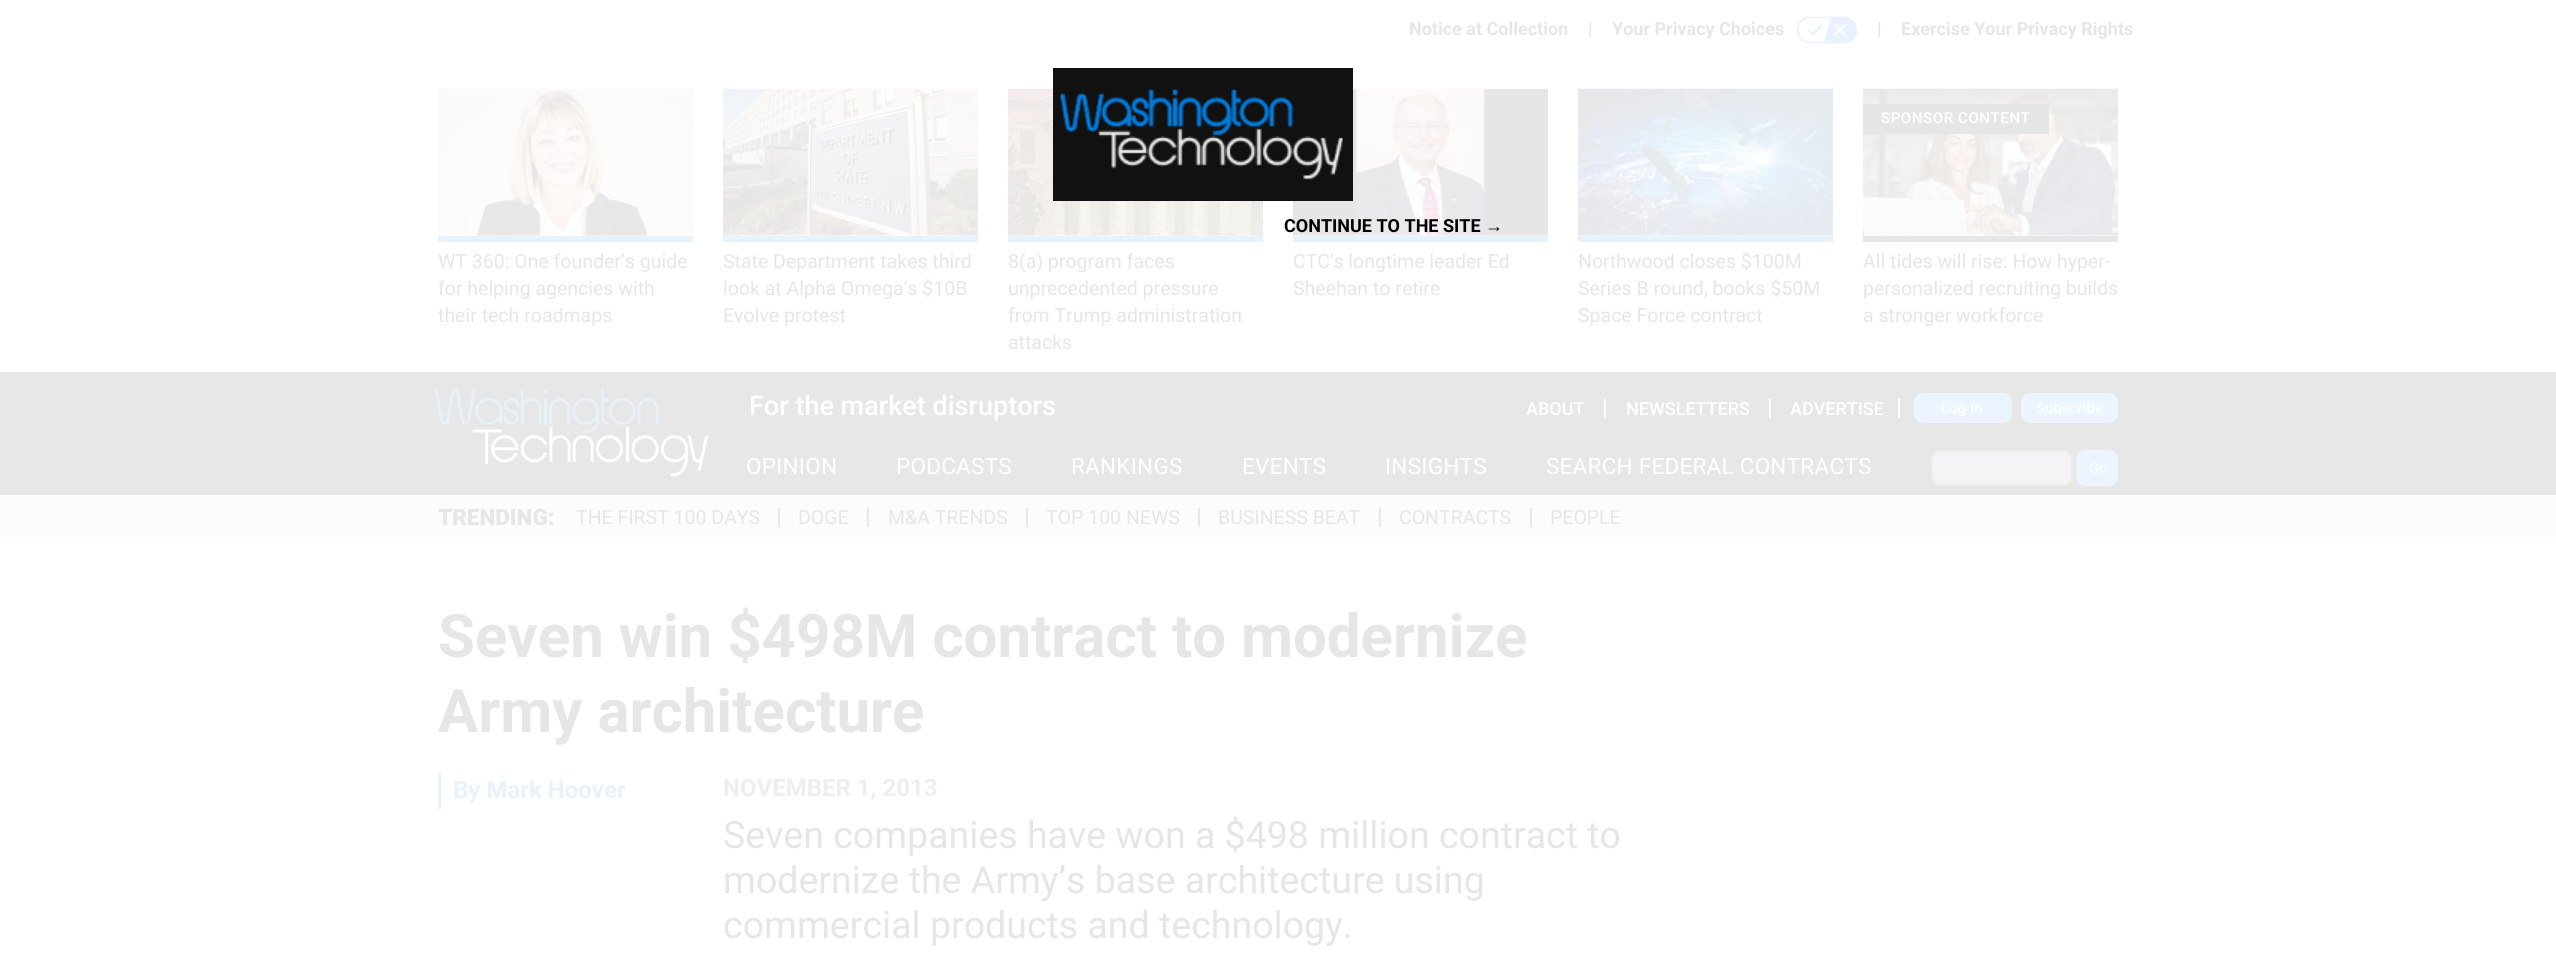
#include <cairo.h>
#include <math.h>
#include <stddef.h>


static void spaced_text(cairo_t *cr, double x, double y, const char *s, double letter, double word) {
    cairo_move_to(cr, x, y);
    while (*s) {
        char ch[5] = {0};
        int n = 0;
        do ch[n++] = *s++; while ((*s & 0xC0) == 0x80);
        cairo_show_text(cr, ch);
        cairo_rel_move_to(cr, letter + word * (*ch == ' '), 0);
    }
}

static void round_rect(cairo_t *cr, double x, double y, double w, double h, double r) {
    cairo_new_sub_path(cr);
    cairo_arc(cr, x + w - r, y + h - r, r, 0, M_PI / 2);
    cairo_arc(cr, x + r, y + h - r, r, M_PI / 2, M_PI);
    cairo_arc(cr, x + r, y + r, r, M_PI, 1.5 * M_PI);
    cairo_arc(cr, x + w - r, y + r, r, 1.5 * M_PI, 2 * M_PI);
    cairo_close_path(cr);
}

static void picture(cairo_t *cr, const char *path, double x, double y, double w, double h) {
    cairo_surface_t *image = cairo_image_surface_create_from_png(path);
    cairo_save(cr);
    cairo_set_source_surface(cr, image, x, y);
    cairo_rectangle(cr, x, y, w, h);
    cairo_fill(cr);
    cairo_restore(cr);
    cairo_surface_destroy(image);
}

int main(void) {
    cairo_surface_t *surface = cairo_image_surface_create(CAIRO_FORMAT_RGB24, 2556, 958);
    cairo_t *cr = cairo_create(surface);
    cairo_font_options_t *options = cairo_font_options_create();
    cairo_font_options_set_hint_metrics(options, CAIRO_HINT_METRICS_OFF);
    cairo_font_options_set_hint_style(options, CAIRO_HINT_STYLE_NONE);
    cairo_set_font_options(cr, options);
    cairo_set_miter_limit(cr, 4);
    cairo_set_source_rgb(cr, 1, 1, 1);
    cairo_paint(cr);
    cairo_select_font_face(cr, "Roboto", CAIRO_FONT_SLANT_NORMAL, CAIRO_FONT_WEIGHT_BOLD);
    cairo_set_font_size(cr, 18);
    cairo_set_source_rgb(cr, 0.902, 0.902, 0.902);
    cairo_move_to(cr, 1409, 35);
    cairo_show_text(cr, "Notice at Collection");
    cairo_move_to(cr, 1588, 35);
    cairo_show_text(cr, "|");
    cairo_move_to(cr, 1612, 35);
    cairo_show_text(cr, "Your Privacy Choices");
    picture(cr, "img1.png", 1797, 16, 60, 28);
    cairo_move_to(cr, 1877, 35);
    cairo_show_text(cr, "|");
    cairo_move_to(cr, 1901, 35);
    cairo_show_text(cr, "Exercise Your Privacy Rights");
    cairo_set_source_rgb(cr, 0.902, 0.949, 0.988);
    cairo_rectangle(cr, 438, 236, 255, 6);
    cairo_fill(cr);
    picture(cr, "img2.png", 438, 88, 255, 148);
    cairo_select_font_face(cr, "Roboto", CAIRO_FONT_SLANT_NORMAL, CAIRO_FONT_WEIGHT_NORMAL);
    cairo_set_font_size(cr, 19.5);
    cairo_set_source_rgb(cr, 0.902, 0.902, 0.902);
    cairo_move_to(cr, 438, 268);
    cairo_show_text(cr, "WT 360: One founder’s guide");
    cairo_move_to(cr, 438, 295);
    cairo_show_text(cr, "for helping agencies with");
    cairo_move_to(cr, 438, 322);
    cairo_show_text(cr, "their tech roadmaps");
    cairo_set_source_rgb(cr, 0.902, 0.949, 0.988);
    cairo_rectangle(cr, 723, 236, 255, 6);
    cairo_fill(cr);
    picture(cr, "img3.png", 723, 88, 255, 148);
    cairo_set_source_rgb(cr, 0.902, 0.902, 0.902);
    cairo_move_to(cr, 723, 268);
    cairo_show_text(cr, "State Department takes third");
    cairo_move_to(cr, 723, 295);
    cairo_show_text(cr, "look at Alpha Omega’s $10B");
    cairo_move_to(cr, 723, 322);
    cairo_show_text(cr, "Evolve protest");
    cairo_set_source_rgb(cr, 0.902, 0.949, 0.988);
    cairo_rectangle(cr, 1008, 236, 255, 6);
    cairo_fill(cr);
    picture(cr, "img4.png", 1008, 88, 255, 148);
    cairo_set_source_rgb(cr, 0.902, 0.902, 0.902);
    cairo_move_to(cr, 1008, 268);
    cairo_show_text(cr, "8(a) program faces");
    cairo_move_to(cr, 1008, 295);
    cairo_show_text(cr, "unprecedented pressure");
    cairo_move_to(cr, 1008, 322);
    cairo_show_text(cr, "from Trump administration");
    cairo_move_to(cr, 1008, 349);
    cairo_show_text(cr, "attacks");
    cairo_set_source_rgb(cr, 0.902, 0.949, 0.988);
    cairo_rectangle(cr, 1293, 236, 255, 6);
    cairo_fill(cr);
    picture(cr, "img5.png", 1293, 88, 255, 148);
    cairo_set_source_rgb(cr, 0.902, 0.902, 0.902);
    cairo_move_to(cr, 1293, 268);
    cairo_show_text(cr, "CTC's longtime leader Ed");
    cairo_move_to(cr, 1293, 295);
    cairo_show_text(cr, "Sheehan to retire");
    cairo_set_source_rgb(cr, 0.902, 0.949, 0.988);
    cairo_rectangle(cr, 1578, 236, 255, 6);
    cairo_fill(cr);
    picture(cr, "img6.png", 1578, 88, 255, 148);
    cairo_set_source_rgb(cr, 0.902, 0.902, 0.902);
    cairo_move_to(cr, 1578, 268);
    cairo_show_text(cr, "Northwood closes $100M");
    cairo_move_to(cr, 1578, 295);
    cairo_show_text(cr, "Series B round, books $50M");
    cairo_move_to(cr, 1578, 322);
    cairo_show_text(cr, "Space Force contract");
    cairo_rectangle(cr, 1863, 236, 255, 6);
    cairo_fill(cr);
    picture(cr, "img7.png", 1863, 88, 255, 148);
    cairo_rectangle(cr, 1863, 104, 186, 30);
    cairo_fill(cr);
    cairo_select_font_face(cr, "Roboto Medium", CAIRO_FONT_SLANT_NORMAL, CAIRO_FONT_WEIGHT_NORMAL);
    cairo_set_font_size(cr, 15);
    cairo_set_source_rgb(cr, 1, 1, 1);
    spaced_text(cr, 1881, 123, "SPONSOR CONTENT", 0.6, 0);
    cairo_select_font_face(cr, "Roboto", CAIRO_FONT_SLANT_NORMAL, CAIRO_FONT_WEIGHT_NORMAL);
    cairo_set_font_size(cr, 19.5);
    cairo_set_source_rgb(cr, 0.902, 0.902, 0.902);
    cairo_move_to(cr, 1863, 268);
    cairo_show_text(cr, "All tides will rise: How hyper-");
    cairo_move_to(cr, 1863, 295);
    cairo_show_text(cr, "personalized recruiting builds");
    cairo_move_to(cr, 1863, 322);
    cairo_show_text(cr, "a stronger workforce");
    cairo_set_source_rgb(cr, 0.067, 0.067, 0.067);
    cairo_rectangle(cr, 1053, 68, 300, 133);
    cairo_fill(cr);
    picture(cr, "img8.png", 1060, 88, 283, 93);
    cairo_select_font_face(cr, "Roboto", CAIRO_FONT_SLANT_NORMAL, CAIRO_FONT_WEIGHT_BOLD);
    cairo_set_font_size(cr, 18);
    cairo_set_source_rgb(cr, 0, 0, 0);
    cairo_move_to(cr, 1284, 232);
    cairo_show_text(cr, "CONTINUE TO THE SITE");
    cairo_select_font_face(cr, "Liberation Sans", CAIRO_FONT_SLANT_NORMAL, CAIRO_FONT_WEIGHT_BOLD);
    cairo_move_to(cr, 1485, 232);
    cairo_show_text(cr, "→");
    cairo_set_source_rgb(cr, 0.906, 0.906, 0.906);
    cairo_rectangle(cr, 0, 372, 2556, 123);
    cairo_fill(cr);
    picture(cr, "img9.png", 434, 388, 275, 89);
    cairo_select_font_face(cr, "Roboto Medium", CAIRO_FONT_SLANT_NORMAL, CAIRO_FONT_WEIGHT_NORMAL);
    cairo_set_font_size(cr, 27);
    cairo_set_source_rgb(cr, 1, 1, 1);
    cairo_move_to(cr, 749, 415);
    cairo_show_text(cr, "For the market disruptors");
    cairo_set_font_size(cr, 18);
    cairo_move_to(cr, 1526, 415);
    cairo_show_text(cr, "ABOUT");
    cairo_select_font_face(cr, "Roboto", CAIRO_FONT_SLANT_NORMAL, CAIRO_FONT_WEIGHT_BOLD);
    cairo_set_font_size(cr, 22.5);
    cairo_move_to(cr, 1602, 415);
    cairo_show_text(cr, "|");
    cairo_select_font_face(cr, "Roboto Medium", CAIRO_FONT_SLANT_NORMAL, CAIRO_FONT_WEIGHT_NORMAL);
    cairo_set_font_size(cr, 18);
    cairo_move_to(cr, 1626, 415);
    cairo_show_text(cr, "NEWSLETTERS");
    cairo_select_font_face(cr, "Roboto", CAIRO_FONT_SLANT_NORMAL, CAIRO_FONT_WEIGHT_BOLD);
    cairo_set_font_size(cr, 22.5);
    cairo_move_to(cr, 1767, 415);
    cairo_show_text(cr, "|");
    cairo_select_font_face(cr, "Roboto Medium", CAIRO_FONT_SLANT_NORMAL, CAIRO_FONT_WEIGHT_NORMAL);
    cairo_set_font_size(cr, 18);
    cairo_move_to(cr, 1790, 415);
    cairo_show_text(cr, "ADVERTISE");
    cairo_select_font_face(cr, "Roboto", CAIRO_FONT_SLANT_NORMAL, CAIRO_FONT_WEIGHT_BOLD);
    cairo_set_font_size(cr, 22.5);
    cairo_move_to(cr, 1896, 415);
    cairo_show_text(cr, "|");
    cairo_set_source_rgb(cr, 0.918, 0.957, 1);
    round_rect(cr, 1914, 393, 98, 30, 9);
    cairo_fill(cr);
    cairo_select_font_face(cr, "Roboto Medium", CAIRO_FONT_SLANT_NORMAL, CAIRO_FONT_WEIGHT_NORMAL);
    cairo_set_font_size(cr, 15);
    cairo_set_source_rgb(cr, 1, 1, 1);
    cairo_move_to(cr, 1941, 413);
    cairo_show_text(cr, "Log In");
    cairo_set_source_rgb(cr, 0.918, 0.957, 1);
    round_rect(cr, 2021, 393, 97, 30, 9);
    cairo_fill(cr);
    cairo_set_source_rgb(cr, 1, 1, 1);
    cairo_move_to(cr, 2036, 413);
    cairo_show_text(cr, "Subscribe");
    cairo_select_font_face(cr, "Roboto", CAIRO_FONT_SLANT_NORMAL, CAIRO_FONT_WEIGHT_NORMAL);
    cairo_set_font_size(cr, 22.5);
    spaced_text(cr, 746, 474, "OPINION", 0.25, 0);
    spaced_text(cr, 896, 474, "PODCASTS", 0.25, 0);
    spaced_text(cr, 1071, 474, "RANKINGS", 0.25, 0);
    spaced_text(cr, 1242, 474, "EVENTS", 0.25, 0);
    spaced_text(cr, 1385, 474, "INSIGHTS", 0.25, 0);
    spaced_text(cr, 1546, 474, "SEARCH FEDERAL CONTRACTS", 0.25, 0);
    cairo_set_source_rgb(cr, 0.957, 0.957, 0.961);
    round_rect(cr, 1932, 451, 140, 34, 8);
    cairo_fill_preserve(cr);
    cairo_set_source_rgb(cr, 0.929, 0.929, 0.929);
    cairo_stroke(cr);
    cairo_set_source_rgb(cr, 0.918, 0.957, 1);
    round_rect(cr, 2076, 450, 42, 36, 9);
    cairo_fill(cr);
    cairo_set_font_size(cr, 15);
    cairo_set_source_rgb(cr, 1, 1, 1);
    cairo_move_to(cr, 2089, 473);
    cairo_show_text(cr, "Go");
    cairo_set_source_rgb(cr, 0.988, 0.988, 0.988);
    cairo_rectangle(cr, 0, 495, 2556, 42);
    cairo_fill(cr);
    cairo_select_font_face(cr, "Roboto Black", CAIRO_FONT_SLANT_NORMAL, CAIRO_FONT_WEIGHT_NORMAL);
    cairo_set_font_size(cr, 22.5);
    cairo_set_source_rgb(cr, 0.902, 0.902, 0.902);
    cairo_move_to(cr, 438, 525);
    cairo_show_text(cr, "TRENDING:");
    cairo_select_font_face(cr, "Roboto", CAIRO_FONT_SLANT_NORMAL, CAIRO_FONT_WEIGHT_NORMAL);
    cairo_set_font_size(cr, 19.5);
    cairo_move_to(cr, 576, 524);
    cairo_show_text(cr, "THE FIRST 100 DAYS");
    cairo_select_font_face(cr, "Roboto", CAIRO_FONT_SLANT_NORMAL, CAIRO_FONT_WEIGHT_BOLD);
    cairo_set_font_size(cr, 22.5);
    cairo_move_to(cr, 776, 524);
    cairo_show_text(cr, "|");
    cairo_select_font_face(cr, "Roboto", CAIRO_FONT_SLANT_NORMAL, CAIRO_FONT_WEIGHT_NORMAL);
    cairo_set_font_size(cr, 19.5);
    cairo_move_to(cr, 798, 524);
    cairo_show_text(cr, "DOGE");
    cairo_select_font_face(cr, "Roboto", CAIRO_FONT_SLANT_NORMAL, CAIRO_FONT_WEIGHT_BOLD);
    cairo_set_font_size(cr, 22.5);
    cairo_move_to(cr, 865, 524);
    cairo_show_text(cr, "|");
    cairo_select_font_face(cr, "Roboto", CAIRO_FONT_SLANT_NORMAL, CAIRO_FONT_WEIGHT_NORMAL);
    cairo_set_font_size(cr, 19.5);
    cairo_move_to(cr, 888, 524);
    cairo_show_text(cr, "M&A TRENDS");
    cairo_select_font_face(cr, "Roboto", CAIRO_FONT_SLANT_NORMAL, CAIRO_FONT_WEIGHT_BOLD);
    cairo_set_font_size(cr, 22.5);
    cairo_move_to(cr, 1024, 524);
    cairo_show_text(cr, "|");
    cairo_select_font_face(cr, "Roboto", CAIRO_FONT_SLANT_NORMAL, CAIRO_FONT_WEIGHT_NORMAL);
    cairo_set_font_size(cr, 19.5);
    cairo_move_to(cr, 1046, 524);
    cairo_show_text(cr, "TOP 100 NEWS");
    cairo_select_font_face(cr, "Roboto", CAIRO_FONT_SLANT_NORMAL, CAIRO_FONT_WEIGHT_BOLD);
    cairo_set_font_size(cr, 22.5);
    cairo_move_to(cr, 1196, 524);
    cairo_show_text(cr, "|");
    cairo_select_font_face(cr, "Roboto", CAIRO_FONT_SLANT_NORMAL, CAIRO_FONT_WEIGHT_NORMAL);
    cairo_set_font_size(cr, 19.5);
    cairo_move_to(cr, 1218, 524);
    cairo_show_text(cr, "BUSINESS BEAT");
    cairo_select_font_face(cr, "Roboto", CAIRO_FONT_SLANT_NORMAL, CAIRO_FONT_WEIGHT_BOLD);
    cairo_set_font_size(cr, 22.5);
    cairo_move_to(cr, 1377, 524);
    cairo_show_text(cr, "|");
    cairo_select_font_face(cr, "Roboto", CAIRO_FONT_SLANT_NORMAL, CAIRO_FONT_WEIGHT_NORMAL);
    cairo_set_font_size(cr, 19.5);
    cairo_move_to(cr, 1399, 524);
    cairo_show_text(cr, "CONTRACTS");
    cairo_select_font_face(cr, "Roboto", CAIRO_FONT_SLANT_NORMAL, CAIRO_FONT_WEIGHT_BOLD);
    cairo_set_font_size(cr, 22.5);
    cairo_move_to(cr, 1528, 524);
    cairo_show_text(cr, "|");
    cairo_select_font_face(cr, "Roboto", CAIRO_FONT_SLANT_NORMAL, CAIRO_FONT_WEIGHT_NORMAL);
    cairo_set_font_size(cr, 19.5);
    cairo_move_to(cr, 1550, 524);
    cairo_show_text(cr, "PEOPLE");
    cairo_select_font_face(cr, "Roboto", CAIRO_FONT_SLANT_NORMAL, CAIRO_FONT_WEIGHT_BOLD);
    cairo_set_font_size(cr, 60);
    cairo_move_to(cr, 438, 657);
    cairo_show_text(cr, "Seven win $498M contract to modernize");
    cairo_move_to(cr, 438, 732);
    cairo_show_text(cr, "Army architecture");
    cairo_set_source_rgb(cr, 0.902, 0.949, 0.988);
    cairo_rectangle(cr, 438, 773, 3, 36);
    cairo_fill(cr);
    cairo_set_font_size(cr, 24);
    cairo_move_to(cr, 453, 798);
    cairo_show_text(cr, "By Mark Hoover");
    cairo_set_source_rgb(cr, 0.933, 0.933, 0.933);
    cairo_move_to(cr, 723, 796);
    cairo_show_text(cr, "NOVEMBER 1, 2013");
    cairo_select_font_face(cr, "Roboto", CAIRO_FONT_SLANT_NORMAL, CAIRO_FONT_WEIGHT_NORMAL);
    cairo_set_font_size(cr, 37.5);
    cairo_set_source_rgb(cr, 0.902, 0.902, 0.902);
    cairo_move_to(cr, 723, 848);
    cairo_show_text(cr, "Seven companies have won a $498 million contract to");
    cairo_move_to(cr, 723, 893);
    cairo_show_text(cr, "modernize the Army’s base architecture using");
    cairo_move_to(cr, 723, 938);
    cairo_show_text(cr, "commercial products and technology.");
    cairo_surface_write_to_png(surface, "page.png");
    cairo_font_options_destroy(options);
    cairo_destroy(cr);
    cairo_surface_destroy(surface);
    return 0;
}
